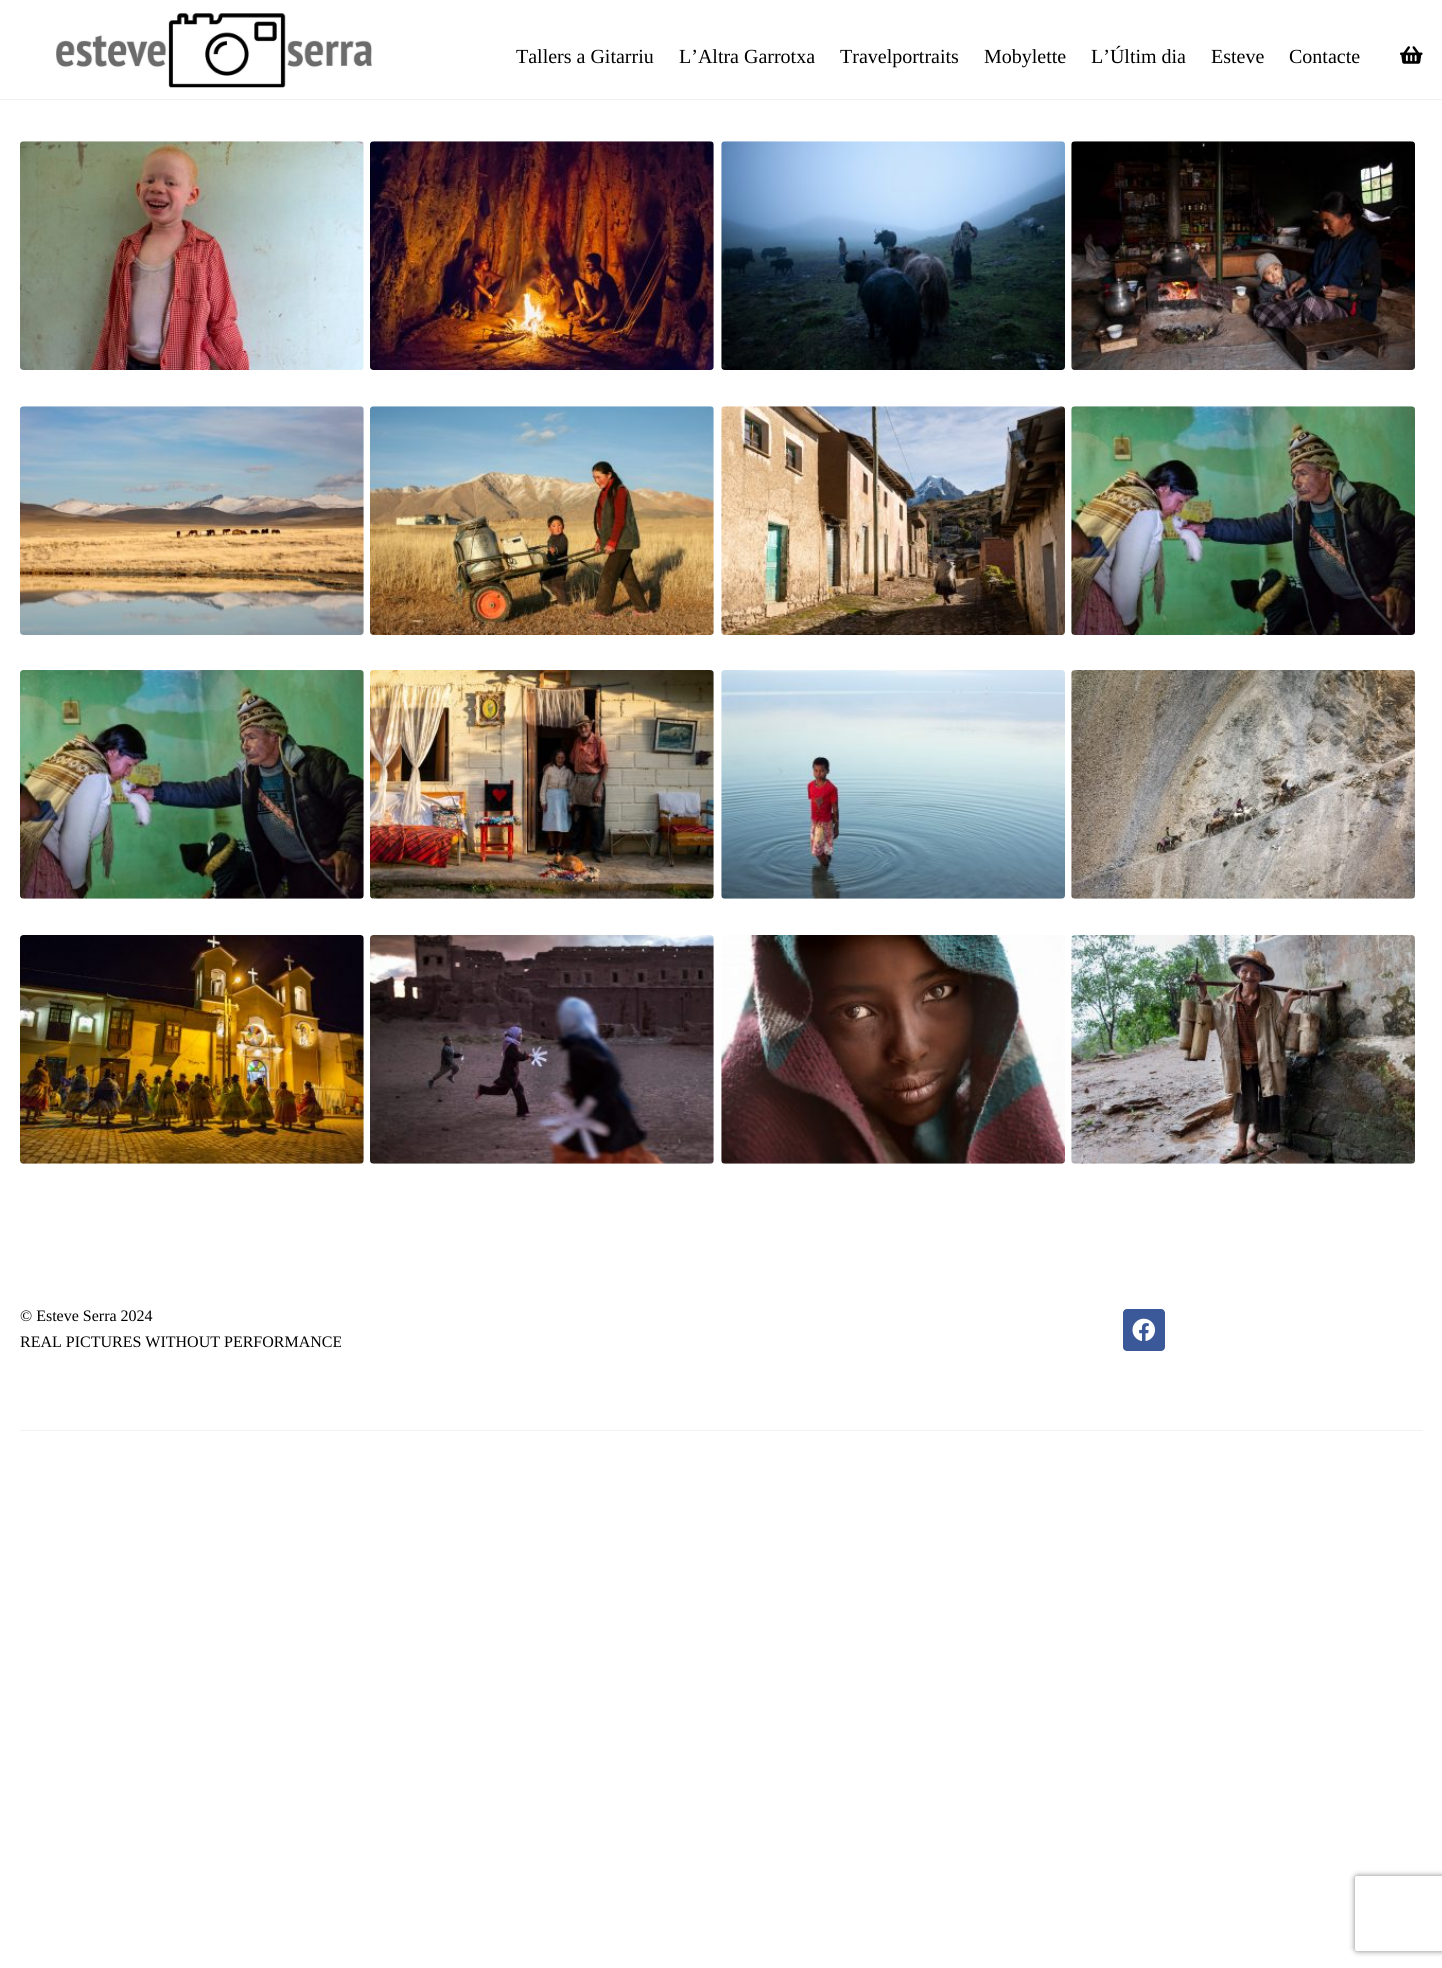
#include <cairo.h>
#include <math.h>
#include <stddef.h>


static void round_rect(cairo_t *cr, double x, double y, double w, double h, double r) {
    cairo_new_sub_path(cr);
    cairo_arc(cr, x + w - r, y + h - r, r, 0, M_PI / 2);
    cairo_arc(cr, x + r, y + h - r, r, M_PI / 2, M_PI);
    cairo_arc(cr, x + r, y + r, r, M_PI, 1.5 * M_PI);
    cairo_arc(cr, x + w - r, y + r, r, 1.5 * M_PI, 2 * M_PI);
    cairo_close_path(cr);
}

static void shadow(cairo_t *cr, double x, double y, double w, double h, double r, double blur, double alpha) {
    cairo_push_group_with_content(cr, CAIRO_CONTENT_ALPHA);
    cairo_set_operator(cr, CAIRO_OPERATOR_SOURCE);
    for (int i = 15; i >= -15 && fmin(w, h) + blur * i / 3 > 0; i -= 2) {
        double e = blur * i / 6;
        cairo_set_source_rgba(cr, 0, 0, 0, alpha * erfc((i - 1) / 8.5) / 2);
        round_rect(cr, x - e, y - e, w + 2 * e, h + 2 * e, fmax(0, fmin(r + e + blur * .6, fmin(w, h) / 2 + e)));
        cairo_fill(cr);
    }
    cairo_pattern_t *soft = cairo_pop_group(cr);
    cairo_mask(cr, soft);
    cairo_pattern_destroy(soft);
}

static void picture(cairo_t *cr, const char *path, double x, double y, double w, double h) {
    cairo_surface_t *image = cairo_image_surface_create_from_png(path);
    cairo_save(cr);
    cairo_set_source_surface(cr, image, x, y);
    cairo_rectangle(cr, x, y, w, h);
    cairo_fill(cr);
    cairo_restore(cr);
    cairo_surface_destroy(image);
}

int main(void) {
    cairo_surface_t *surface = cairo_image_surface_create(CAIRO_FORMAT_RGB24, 1442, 1968);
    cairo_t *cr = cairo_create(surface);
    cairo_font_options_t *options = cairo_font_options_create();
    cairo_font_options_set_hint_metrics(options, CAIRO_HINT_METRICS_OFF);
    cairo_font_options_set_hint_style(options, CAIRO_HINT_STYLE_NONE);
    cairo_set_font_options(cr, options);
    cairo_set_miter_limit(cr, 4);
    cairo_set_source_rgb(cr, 1, 1, 1);
    cairo_paint(cr);
    cairo_set_source_rgb(cr, 0.941, 0.941, 0.941);
    cairo_rectangle(cr, 0, 99, 1442, 1);
    cairo_fill(cr);
    picture(cr, "img1.png", 56, 13, 316, 75);
    cairo_select_font_face(cr, "Liberation Serif", CAIRO_FONT_SLANT_NORMAL, CAIRO_FONT_WEIGHT_NORMAL);
    cairo_set_font_size(cr, 20);
    cairo_set_source_rgb(cr, 0, 0, 0);
    cairo_move_to(cr, 516, 63);
    cairo_show_text(cr, "Tallers a Gitarriu");
    cairo_move_to(cr, 679, 63);
    cairo_show_text(cr, "L’Altra Garrotxa");
    cairo_move_to(cr, 840, 63);
    cairo_show_text(cr, "Travelportraits");
    cairo_move_to(cr, 984, 63);
    cairo_show_text(cr, "Mobylette");
    cairo_move_to(cr, 1091, 63);
    cairo_show_text(cr, "L’Últim dia");
    cairo_move_to(cr, 1211, 63);
    cairo_show_text(cr, "Esteve");
    cairo_move_to(cr, 1289, 63);
    cairo_show_text(cr, "Contacte");
    picture(cr, "img2.png", 1400, 46, 23, 18);
    picture(cr, "img3.png", 20, 141, 344, 229);
    picture(cr, "img4.png", 370, 141, 344, 229);
    picture(cr, "img5.png", 721, 141, 344, 229);
    picture(cr, "img6.png", 1071, 141, 344, 229);
    picture(cr, "img7.png", 20, 406, 344, 229);
    picture(cr, "img8.png", 370, 406, 344, 229);
    picture(cr, "img9.png", 721, 406, 344, 229);
    picture(cr, "img10.png", 1071, 406, 344, 229);
    picture(cr, "img11.png", 20, 670, 344, 229);
    picture(cr, "img12.png", 370, 670, 344, 229);
    picture(cr, "img13.png", 721, 670, 344, 229);
    picture(cr, "img14.png", 1071, 670, 344, 229);
    picture(cr, "img15.png", 20, 935, 344, 229);
    picture(cr, "img16.png", 370, 935, 344, 229);
    picture(cr, "img17.png", 721, 935, 344, 229);
    picture(cr, "img18.png", 1071, 935, 344, 229);
    cairo_set_source_rgb(cr, 0.949, 0.949, 0.949);
    cairo_rectangle(cr, 20, 1430, 1403, 1);
    cairo_fill(cr);
    cairo_set_font_size(cr, 16);
    cairo_set_source_rgb(cr, 0, 0, 0);
    cairo_move_to(cr, 20, 1321);
    cairo_show_text(cr, "© Esteve Serra 2024");
    cairo_move_to(cr, 20, 1347);
    cairo_show_text(cr, "REAL PICTURES WITHOUT PERFORMANCE");
    cairo_set_source_rgb(cr, 0.231, 0.349, 0.596);
    round_rect(cr, 1123, 1309, 42, 42, 4);
    cairo_fill(cr);
    picture(cr, "img19.png", 1132, 1318, 23, 23);
    cairo_save(cr);
    cairo_set_fill_rule(cr, CAIRO_FILL_RULE_EVEN_ODD);
    cairo_new_path(cr);
    cairo_move_to(cr, 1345, 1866);
    cairo_line_to(cr, 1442, 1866);
    cairo_line_to(cr, 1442, 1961);
    cairo_line_to(cr, 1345, 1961);
    cairo_close_path(cr);
    cairo_move_to(cr, 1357.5, 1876);
    cairo_line_to(cr, 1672.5, 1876);
    cairo_curve_to(cr, 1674, 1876, 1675, 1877, 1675, 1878.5);
    cairo_line_to(cr, 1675, 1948.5);
    cairo_curve_to(cr, 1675, 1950, 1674, 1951, 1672.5, 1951);
    cairo_line_to(cr, 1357.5, 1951);
    cairo_curve_to(cr, 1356, 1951, 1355, 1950, 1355, 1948.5);
    cairo_line_to(cr, 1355, 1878.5);
    cairo_curve_to(cr, 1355, 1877, 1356, 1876, 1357.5, 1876);
    cairo_close_path(cr);
    cairo_clip(cr);
    cairo_set_source_rgb(cr, 0.502, 0.502, 0.502);
    shadow(cr, 1355, 1876, 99, 75, 2.5, 3, 1);
    cairo_restore(cr);
    cairo_surface_write_to_png(surface, "page.png");
    cairo_font_options_destroy(options);
    cairo_destroy(cr);
    cairo_surface_destroy(surface);
    return 0;
}
